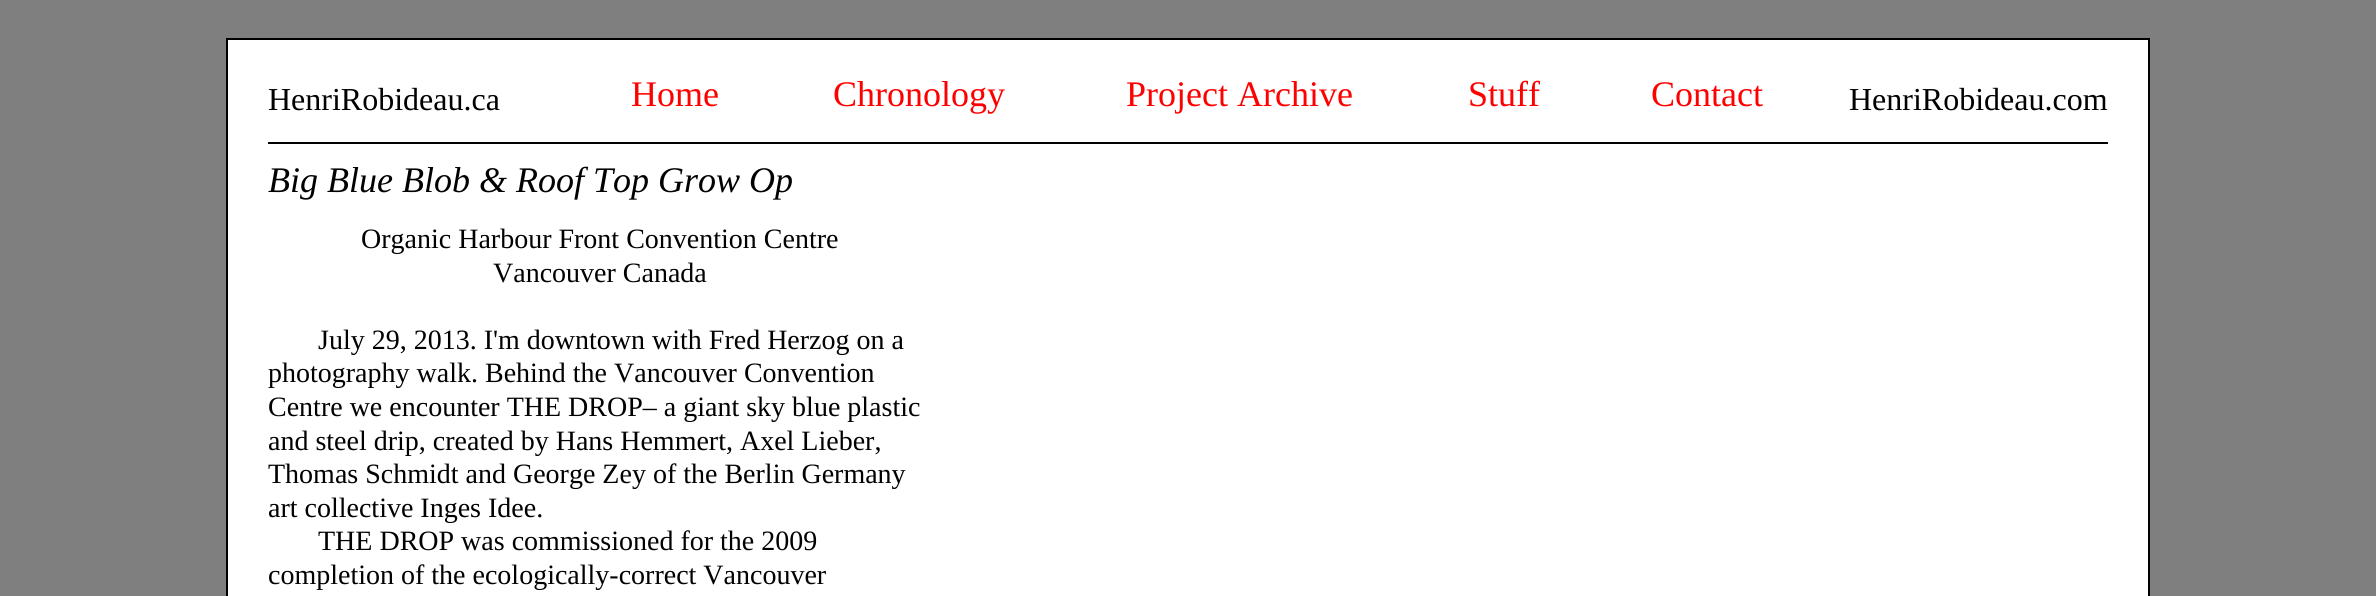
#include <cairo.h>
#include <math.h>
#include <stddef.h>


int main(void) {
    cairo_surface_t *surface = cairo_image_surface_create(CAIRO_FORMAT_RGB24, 2376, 596);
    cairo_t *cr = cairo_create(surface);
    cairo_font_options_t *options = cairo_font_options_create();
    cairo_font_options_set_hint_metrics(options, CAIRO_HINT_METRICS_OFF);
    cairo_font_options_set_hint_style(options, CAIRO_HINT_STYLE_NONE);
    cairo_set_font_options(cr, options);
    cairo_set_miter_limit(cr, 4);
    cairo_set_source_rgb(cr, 0.498, 0.498, 0.498);
    cairo_paint(cr);
    cairo_set_source_rgb(cr, 1, 1, 1);
    cairo_rectangle(cr, 227, 39, 1922, 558);
    cairo_fill_preserve(cr);
    cairo_set_source_rgb(cr, 0, 0, 0);
    cairo_stroke(cr);
    cairo_select_font_face(cr, "Liberation Serif", CAIRO_FONT_SLANT_NORMAL, CAIRO_FONT_WEIGHT_NORMAL);
    cairo_set_font_size(cr, 32);
    cairo_move_to(cr, 268, 110);
    cairo_show_text(cr, "HenriRobideau.ca");
    cairo_set_font_size(cr, 36);
    cairo_set_source_rgb(cr, 1, 0, 0);
    cairo_move_to(cr, 631, 106);
    cairo_show_text(cr, "Home");
    cairo_move_to(cr, 833, 106);
    cairo_show_text(cr, "Chronology");
    cairo_move_to(cr, 1126, 106);
    cairo_show_text(cr, "Project Archive");
    cairo_move_to(cr, 1468, 106);
    cairo_show_text(cr, "Stuff");
    cairo_move_to(cr, 1651, 106);
    cairo_show_text(cr, "Contact");
    cairo_set_font_size(cr, 32);
    cairo_set_source_rgb(cr, 0, 0, 0);
    cairo_move_to(cr, 1849, 110);
    cairo_show_text(cr, "HenriRobideau.com");
    cairo_rectangle(cr, 268, 142, 1840, 2);
    cairo_fill(cr);
    cairo_select_font_face(cr, "Liberation Serif", CAIRO_FONT_SLANT_ITALIC, CAIRO_FONT_WEIGHT_NORMAL);
    cairo_set_font_size(cr, 36);
    cairo_move_to(cr, 268, 192);
    cairo_show_text(cr, "Big Blue Blob & Roof Top Grow Op");
    cairo_select_font_face(cr, "Liberation Serif", CAIRO_FONT_SLANT_NORMAL, CAIRO_FONT_WEIGHT_NORMAL);
    cairo_set_font_size(cr, 28);
    cairo_move_to(cr, 361, 248);
    cairo_show_text(cr, "Organic Harbour Front Convention Centre");
    cairo_move_to(cr, 493, 282);
    cairo_show_text(cr, "Vancouver Canada");
    cairo_move_to(cr, 318, 349);
    cairo_show_text(cr, "July 29, 2013. I'm downtown with Fred Herzog on a");
    cairo_move_to(cr, 268, 382);
    cairo_show_text(cr, "photography walk. Behind the Vancouver Convention");
    cairo_move_to(cr, 268, 416);
    cairo_show_text(cr, "Centre we encounter THE DROP– a giant sky blue plastic");
    cairo_move_to(cr, 268, 450);
    cairo_show_text(cr, "and steel drip, created by Hans Hemmert, Axel Lieber,");
    cairo_move_to(cr, 268, 483);
    cairo_show_text(cr, "Thomas Schmidt and George Zey of the Berlin Germany");
    cairo_move_to(cr, 268, 517);
    cairo_show_text(cr, "art collective Inges Idee.");
    cairo_move_to(cr, 318, 550);
    cairo_show_text(cr, "THE DROP was commissioned for the 2009");
    cairo_move_to(cr, 268, 584);
    cairo_show_text(cr, "completion of the ecologically-correct Vancouver");
    cairo_surface_write_to_png(surface, "page.png");
    cairo_font_options_destroy(options);
    cairo_destroy(cr);
    cairo_surface_destroy(surface);
    return 0;
}
